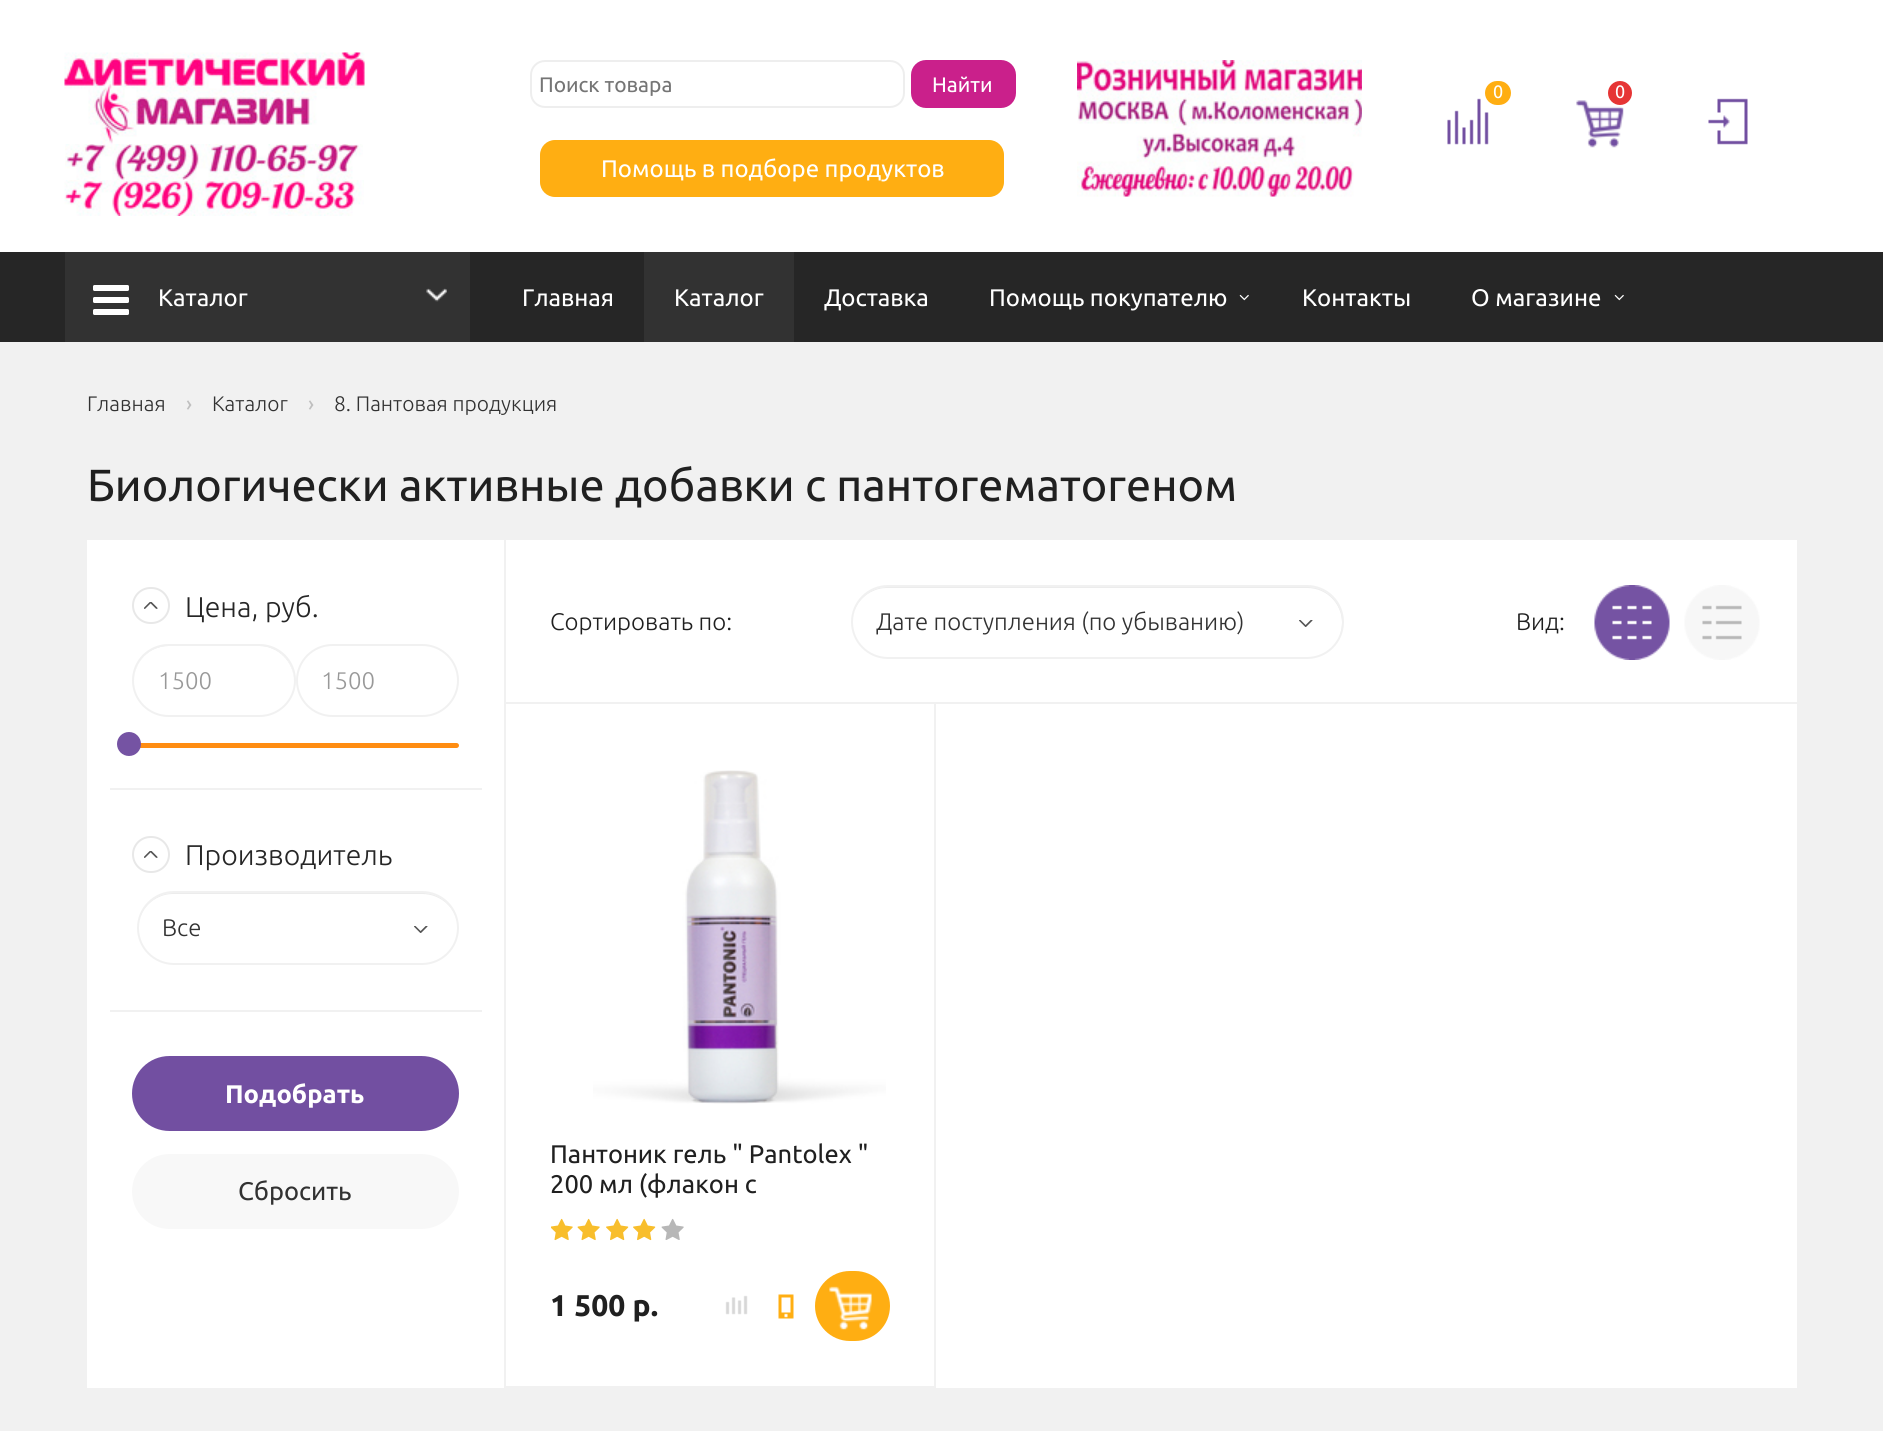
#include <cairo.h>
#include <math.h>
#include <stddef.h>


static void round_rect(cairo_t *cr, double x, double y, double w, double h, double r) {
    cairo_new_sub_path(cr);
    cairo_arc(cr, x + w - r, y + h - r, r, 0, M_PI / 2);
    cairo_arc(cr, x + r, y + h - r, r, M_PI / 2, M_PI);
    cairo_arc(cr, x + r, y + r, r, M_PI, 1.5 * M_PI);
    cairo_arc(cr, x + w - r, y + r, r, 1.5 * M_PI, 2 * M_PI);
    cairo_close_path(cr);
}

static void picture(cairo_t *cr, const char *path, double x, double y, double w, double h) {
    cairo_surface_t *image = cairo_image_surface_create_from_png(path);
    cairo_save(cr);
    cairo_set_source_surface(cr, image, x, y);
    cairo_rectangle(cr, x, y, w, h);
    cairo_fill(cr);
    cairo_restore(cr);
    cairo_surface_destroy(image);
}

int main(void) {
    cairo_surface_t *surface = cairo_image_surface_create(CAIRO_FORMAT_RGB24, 1883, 1431);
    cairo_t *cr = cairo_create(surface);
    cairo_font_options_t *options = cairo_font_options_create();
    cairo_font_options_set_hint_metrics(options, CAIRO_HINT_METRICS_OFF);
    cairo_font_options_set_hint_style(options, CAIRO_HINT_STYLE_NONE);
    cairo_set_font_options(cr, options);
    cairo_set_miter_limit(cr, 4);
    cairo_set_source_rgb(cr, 0.945, 0.945, 0.945);
    cairo_paint(cr);
    cairo_set_source_rgb(cr, 1, 1, 1);
    cairo_rectangle(cr, 0, 0, 1883, 252);
    cairo_fill(cr);
    picture(cr, "img1.png", 64, 52, 301, 92);
    picture(cr, "img2.png", 65, 144, 298, 36);
    picture(cr, "img3.png", 64, 180, 300, 36);
    round_rect(cr, 531, 61, 373, 46, 14);
    cairo_set_source_rgb(cr, 0.933, 0.933, 0.933);
    cairo_stroke(cr);
    cairo_select_font_face(cr, "Ubuntu", CAIRO_FONT_SLANT_NORMAL, CAIRO_FONT_WEIGHT_NORMAL);
    cairo_set_font_size(cr, 21);
    cairo_set_source_rgb(cr, 0.459, 0.459, 0.459);
    cairo_move_to(cr, 539, 92);
    cairo_show_text(cr, "Поиск товара");
    cairo_set_source_rgb(cr, 0.792, 0.125, 0.545);
    round_rect(cr, 912, 61, 103, 46, 14);
    cairo_fill_preserve(cr);
    cairo_stroke(cr);
    cairo_set_source_rgb(cr, 1, 1, 1);
    cairo_move_to(cr, 932, 92);
    cairo_show_text(cr, "Найти");
    cairo_set_source_rgb(cr, 1, 0.682, 0.071);
    round_rect(cr, 540, 140, 464, 57, 15);
    cairo_fill(cr);
    cairo_set_font_size(cr, 24);
    cairo_set_source_rgb(cr, 1, 1, 1);
    cairo_move_to(cr, 601, 177);
    cairo_show_text(cr, "Помощь в подборе продуктов");
    picture(cr, "img4.png", 1077, 60, 285, 137);
    picture(cr, "img5.png", 1447, 98, 42, 47);
    cairo_set_source_rgb(cr, 1, 0.682, 0.071);
    round_rect(cr, 1485, 81, 26, 24, 12);
    cairo_fill(cr);
    cairo_set_font_size(cr, 18);
    cairo_set_source_rgb(cr, 1, 1, 1);
    cairo_move_to(cr, 1493, 98);
    cairo_show_text(cr, "0");
    picture(cr, "img6.png", 1576, 100, 48, 48);
    cairo_set_source_rgb(cr, 0.902, 0.208, 0.208);
    cairo_arc(cr, 1620, 93, 12, 0, 2 * M_PI);
    cairo_fill(cr);
    cairo_set_source_rgb(cr, 1, 1, 1);
    cairo_move_to(cr, 1615, 98);
    cairo_show_text(cr, "0");
    picture(cr, "img7.png", 1708, 98, 40, 47);
    cairo_set_source_rgb(cr, 0.149, 0.149, 0.149);
    cairo_rectangle(cr, 0, 252, 1883, 90);
    cairo_fill(cr);
    cairo_set_source_rgb(cr, 0.196, 0.196, 0.196);
    cairo_rectangle(cr, 65, 252, 405, 90);
    cairo_fill(cr);
    picture(cr, "img8.png", 426, 288, 21, 14);
    cairo_set_source_rgb(cr, 1, 1, 1);
    round_rect(cr, 93, 297, 36, 6, 1.5);
    cairo_fill(cr);
    round_rect(cr, 93, 285, 36, 6, 1.5);
    cairo_fill(cr);
    round_rect(cr, 93, 309, 36, 6, 1.5);
    cairo_fill(cr);
    cairo_set_font_size(cr, 24);
    cairo_move_to(cr, 158, 306);
    cairo_show_text(cr, "Каталог");
    cairo_move_to(cr, 522, 306);
    cairo_show_text(cr, "Главная");
    cairo_set_source_rgb(cr, 0.196, 0.196, 0.196);
    cairo_rectangle(cr, 644, 252, 150, 90);
    cairo_fill(cr);
    cairo_set_source_rgb(cr, 1, 1, 1);
    cairo_move_to(cr, 674, 306);
    cairo_show_text(cr, "Каталог");
    cairo_move_to(cr, 824, 306);
    cairo_show_text(cr, "Доставка");
    cairo_move_to(cr, 989, 306);
    cairo_show_text(cr, "Помощь покупателю");
    picture(cr, "img9.png", 1239, 294, 10, 7);
    cairo_move_to(cr, 1302, 306);
    cairo_show_text(cr, "Контакты");
    cairo_move_to(cr, 1471, 306);
    cairo_show_text(cr, "О магазине");
    picture(cr, "img9.png", 1614, 294, 10, 7);
    cairo_select_font_face(cr, "Ubuntu Light", CAIRO_FONT_SLANT_NORMAL, CAIRO_FONT_WEIGHT_NORMAL);
    cairo_set_font_size(cr, 21);
    cairo_set_source_rgb(cr, 0.196, 0.196, 0.196);
    cairo_move_to(cr, 87, 411);
    cairo_show_text(cr, "Главная");
    cairo_select_font_face(cr, "Ubuntu", CAIRO_FONT_SLANT_NORMAL, CAIRO_FONT_WEIGHT_NORMAL);
    cairo_set_source_rgb(cr, 0.749, 0.749, 0.749);
    cairo_move_to(cr, 186, 411);
    cairo_show_text(cr, "›");
    cairo_select_font_face(cr, "Ubuntu Light", CAIRO_FONT_SLANT_NORMAL, CAIRO_FONT_WEIGHT_NORMAL);
    cairo_set_source_rgb(cr, 0.196, 0.196, 0.196);
    cairo_move_to(cr, 212, 411);
    cairo_show_text(cr, "Каталог");
    cairo_select_font_face(cr, "Ubuntu", CAIRO_FONT_SLANT_NORMAL, CAIRO_FONT_WEIGHT_NORMAL);
    cairo_set_source_rgb(cr, 0.749, 0.749, 0.749);
    cairo_move_to(cr, 308, 411);
    cairo_show_text(cr, "›");
    cairo_select_font_face(cr, "Ubuntu Light", CAIRO_FONT_SLANT_NORMAL, CAIRO_FONT_WEIGHT_NORMAL);
    cairo_set_source_rgb(cr, 0.196, 0.196, 0.196);
    cairo_move_to(cr, 334, 411);
    cairo_show_text(cr, "8. Пантовая продукция");
    cairo_select_font_face(cr, "Ubuntu", CAIRO_FONT_SLANT_NORMAL, CAIRO_FONT_WEIGHT_NORMAL);
    cairo_set_font_size(cr, 45);
    cairo_set_source_rgb(cr, 0.125, 0.125, 0.125);
    cairo_move_to(cr, 87, 501);
    cairo_show_text(cr, "Биологически активные добавки с пантогематогеном");
    cairo_set_source_rgb(cr, 1, 1, 1);
    cairo_rectangle(cr, 87, 540, 1710, 848);
    cairo_fill(cr);
    cairo_set_source_rgb(cr, 0.945, 0.945, 0.945);
    cairo_rectangle(cr, 110, 788, 372, 2);
    cairo_fill(cr);
    picture(cr, "img10.png", 144, 602, 14, 7);
    round_rect(cr, 133, 588, 36, 35, 17.5);
    cairo_set_source_rgb(cr, 0.91, 0.91, 0.91);
    cairo_stroke(cr);
    cairo_select_font_face(cr, "Ubuntu Light", CAIRO_FONT_SLANT_NORMAL, CAIRO_FONT_WEIGHT_NORMAL);
    cairo_set_font_size(cr, 28.5);
    cairo_set_source_rgb(cr, 0.149, 0.149, 0.149);
    cairo_move_to(cr, 185, 617);
    cairo_show_text(cr, "Цена, руб.");
    cairo_set_source_rgb(cr, 0.925, 0.925, 0.925);
    cairo_new_path(cr);
    cairo_move_to(cr, 169, 646);
    cairo_line_to(cr, 259, 646);
    cairo_curve_to(cr, 278, 646, 294, 662, 294, 681);
    cairo_line_to(cr, 294, 680);
    cairo_curve_to(cr, 294, 661, 278, 645, 258, 645);
    cairo_line_to(cr, 170, 645);
    cairo_curve_to(cr, 150, 645, 134, 661, 134, 680);
    cairo_line_to(cr, 134, 681);
    cairo_curve_to(cr, 134, 662, 149, 646, 169, 646);
    cairo_close_path(cr);
    cairo_fill(cr);
    round_rect(cr, 133, 645, 162, 71, 35.5);
    cairo_set_source_rgb(cr, 0.945, 0.945, 0.945);
    cairo_stroke(cr);
    cairo_set_font_size(cr, 24);
    cairo_set_source_rgb(cr, 0.6, 0.6, 0.6);
    cairo_move_to(cr, 158, 689);
    cairo_show_text(cr, "1500");
    round_rect(cr, 297, 645, 161, 71, 35.5);
    cairo_set_source_rgb(cr, 0.945, 0.945, 0.945);
    cairo_stroke(cr);
    cairo_set_source_rgb(cr, 0.6, 0.6, 0.6);
    cairo_move_to(cr, 321, 689);
    cairo_show_text(cr, "1500");
    cairo_set_source_rgb(cr, 1, 0.553, 0.071);
    round_rect(cr, 132, 743, 327, 5, 2.5);
    cairo_fill(cr);
    cairo_set_source_rgb(cr, 0.459, 0.325, 0.639);
    cairo_arc(cr, 129, 744, 12, 0, 2 * M_PI);
    cairo_fill(cr);
    cairo_set_source_rgb(cr, 0.945, 0.945, 0.945);
    cairo_rectangle(cr, 110, 1010, 372, 2);
    cairo_fill(cr);
    picture(cr, "img10.png", 144, 851, 14, 7);
    round_rect(cr, 133, 837, 36, 35, 17.5);
    cairo_set_source_rgb(cr, 0.91, 0.91, 0.91);
    cairo_stroke(cr);
    cairo_set_font_size(cr, 28.5);
    cairo_set_source_rgb(cr, 0.149, 0.149, 0.149);
    cairo_move_to(cr, 185, 865);
    cairo_show_text(cr, "Производитель");
    picture(cr, "img11.png", 414, 926, 14, 7);
    cairo_set_source_rgb(cr, 0.925, 0.925, 0.925);
    cairo_new_path(cr);
    cairo_move_to(cr, 173, 894);
    cairo_line_to(cr, 422, 894);
    cairo_curve_to(cr, 442, 894, 458, 910, 458, 929);
    cairo_line_to(cr, 458, 928);
    cairo_curve_to(cr, 458, 909, 442, 893, 423, 893);
    cairo_line_to(cr, 173, 893);
    cairo_curve_to(cr, 154, 893, 138, 909, 138, 928);
    cairo_line_to(cr, 138, 929);
    cairo_curve_to(cr, 138, 910, 154, 894, 173, 894);
    cairo_close_path(cr);
    cairo_fill(cr);
    round_rect(cr, 138, 892, 320, 72, 36);
    cairo_set_source_rgb(cr, 0.945, 0.945, 0.945);
    cairo_stroke(cr);
    cairo_set_font_size(cr, 24);
    cairo_set_source_rgb(cr, 0.196, 0.196, 0.196);
    cairo_move_to(cr, 162, 936);
    cairo_show_text(cr, "Все");
    cairo_set_source_rgb(cr, 0.447, 0.31, 0.631);
    round_rect(cr, 132, 1056, 327, 75, 37.5);
    cairo_fill(cr);
    cairo_select_font_face(cr, "Ubuntu", CAIRO_FONT_SLANT_NORMAL, CAIRO_FONT_WEIGHT_BOLD);
    cairo_set_font_size(cr, 25.5);
    cairo_set_source_rgb(cr, 1, 1, 1);
    cairo_move_to(cr, 225, 1103);
    cairo_show_text(cr, "Подобрать");
    cairo_set_source_rgb(cr, 0.969, 0.969, 0.969);
    round_rect(cr, 132, 1154, 327, 75, 37.5);
    cairo_fill(cr);
    cairo_select_font_face(cr, "Ubuntu", CAIRO_FONT_SLANT_NORMAL, CAIRO_FONT_WEIGHT_NORMAL);
    cairo_set_source_rgb(cr, 0.196, 0.196, 0.196);
    cairo_move_to(cr, 238, 1200);
    cairo_show_text(cr, "Сбросить");
    cairo_set_source_rgb(cr, 0.945, 0.945, 0.945);
    cairo_rectangle(cr, 504, 540, 2, 162);
    cairo_fill(cr);
    cairo_rectangle(cr, 936, 702, 861, 2);
    cairo_fill(cr);
    cairo_select_font_face(cr, "Ubuntu Light", CAIRO_FONT_SLANT_NORMAL, CAIRO_FONT_WEIGHT_NORMAL);
    cairo_set_font_size(cr, 24);
    cairo_set_source_rgb(cr, 0.125, 0.125, 0.125);
    cairo_move_to(cr, 550, 630);
    cairo_show_text(cr, "Сортировать по:");
    picture(cr, "img11.png", 1299, 620, 14, 7);
    cairo_set_source_rgb(cr, 0.925, 0.925, 0.925);
    cairo_new_path(cr);
    cairo_move_to(cr, 887, 588);
    cairo_line_to(cr, 1307, 588);
    cairo_curve_to(cr, 1327, 588, 1342, 604, 1342, 623);
    cairo_curve_to(cr, 1342, 630, 1340, 636, 1337, 642);
    cairo_curve_to(cr, 1341, 636, 1343, 629, 1343, 622);
    cairo_curve_to(cr, 1343, 603, 1327, 587, 1308, 587);
    cairo_line_to(cr, 887, 587);
    cairo_curve_to(cr, 868, 587, 852, 603, 852, 622);
    cairo_line_to(cr, 852, 623);
    cairo_curve_to(cr, 852, 604, 868, 588, 887, 588);
    cairo_close_path(cr);
    cairo_fill(cr);
    round_rect(cr, 852, 586, 491, 72, 36);
    cairo_set_source_rgb(cr, 0.945, 0.945, 0.945);
    cairo_stroke(cr);
    cairo_set_source_rgb(cr, 0.196, 0.196, 0.196);
    cairo_move_to(cr, 876, 630);
    cairo_show_text(cr, "Дате поступления (по убыванию)");
    cairo_set_source_rgb(cr, 0.125, 0.125, 0.125);
    cairo_move_to(cr, 1516, 630);
    cairo_show_text(cr, "Вид:");
    picture(cr, "img12.png", 1594, 585, 76, 75);
    picture(cr, "img13.png", 1684, 585, 76, 75);
    cairo_rectangle(cr, 505, 703, 430, 684);
    cairo_set_source_rgb(cr, 0.945, 0.945, 0.945);
    cairo_stroke(cr);
    picture(cr, "img14.png", 593, 770, 293, 334);
    cairo_select_font_face(cr, "Ubuntu", CAIRO_FONT_SLANT_NORMAL, CAIRO_FONT_WEIGHT_NORMAL);
    cairo_set_font_size(cr, 25.5);
    cairo_set_source_rgb(cr, 0.125, 0.125, 0.125);
    cairo_move_to(cr, 550, 1163);
    cairo_show_text(cr, "Пантоник гель \" Pantolex \"");
    cairo_move_to(cr, 550, 1193);
    cairo_show_text(cr, "200 мл (флакон с");
    picture(cr, "img15.png", 551, 1218, 22, 23);
    picture(cr, "img16.png", 577, 1218, 23, 23);
    picture(cr, "img17.png", 606, 1218, 23, 23);
    picture(cr, "img17.png", 633, 1218, 23, 23);
    picture(cr, "img18.png", 661, 1218, 23, 22);
    cairo_select_font_face(cr, "Ubuntu", CAIRO_FONT_SLANT_NORMAL, CAIRO_FONT_WEIGHT_BOLD);
    cairo_set_font_size(cr, 30);
    cairo_move_to(cr, 550, 1316);
    cairo_show_text(cr, "1 500 р.");
    picture(cr, "img19.png", 725, 1295, 23, 20);
    picture(cr, "img20.png", 778, 1294, 16, 25);
    cairo_set_source_rgb(cr, 1, 0.682, 0.071);
    round_rect(cr, 815, 1271, 75, 70, 35);
    cairo_fill(cr);
    picture(cr, "img21.png", 829, 1286, 43, 44);
    cairo_surface_write_to_png(surface, "page.png");
    cairo_font_options_destroy(options);
    cairo_destroy(cr);
    cairo_surface_destroy(surface);
    return 0;
}
